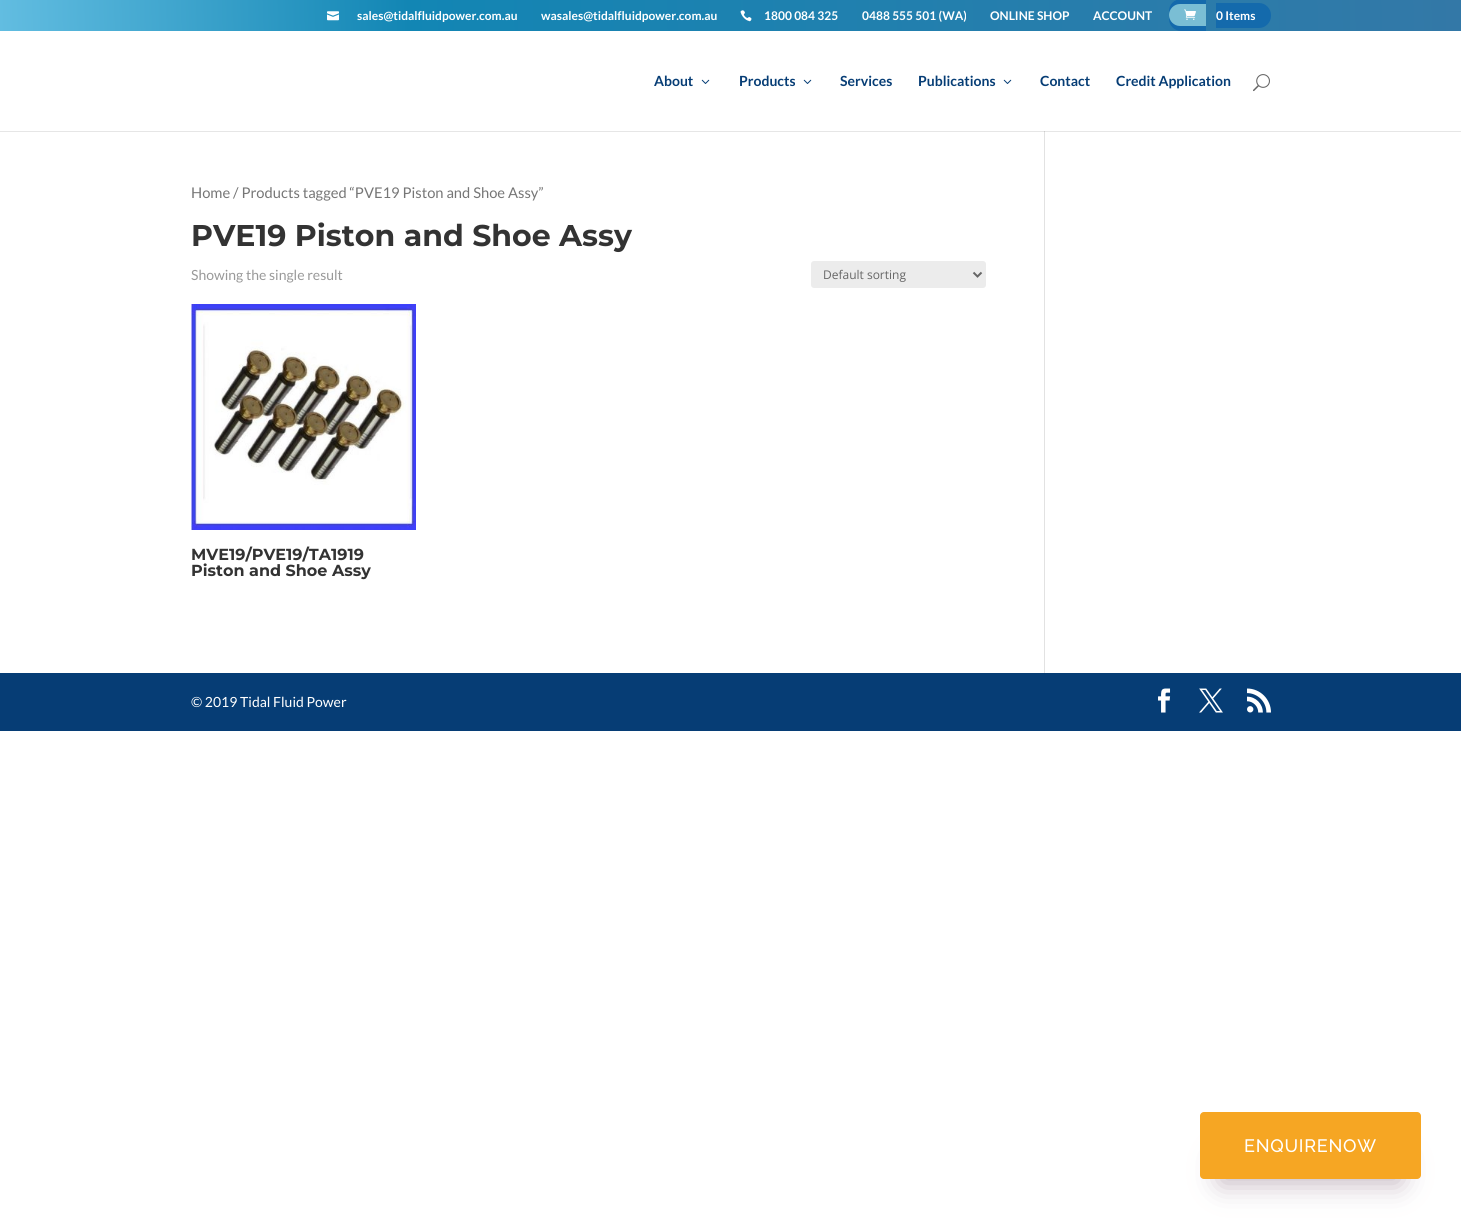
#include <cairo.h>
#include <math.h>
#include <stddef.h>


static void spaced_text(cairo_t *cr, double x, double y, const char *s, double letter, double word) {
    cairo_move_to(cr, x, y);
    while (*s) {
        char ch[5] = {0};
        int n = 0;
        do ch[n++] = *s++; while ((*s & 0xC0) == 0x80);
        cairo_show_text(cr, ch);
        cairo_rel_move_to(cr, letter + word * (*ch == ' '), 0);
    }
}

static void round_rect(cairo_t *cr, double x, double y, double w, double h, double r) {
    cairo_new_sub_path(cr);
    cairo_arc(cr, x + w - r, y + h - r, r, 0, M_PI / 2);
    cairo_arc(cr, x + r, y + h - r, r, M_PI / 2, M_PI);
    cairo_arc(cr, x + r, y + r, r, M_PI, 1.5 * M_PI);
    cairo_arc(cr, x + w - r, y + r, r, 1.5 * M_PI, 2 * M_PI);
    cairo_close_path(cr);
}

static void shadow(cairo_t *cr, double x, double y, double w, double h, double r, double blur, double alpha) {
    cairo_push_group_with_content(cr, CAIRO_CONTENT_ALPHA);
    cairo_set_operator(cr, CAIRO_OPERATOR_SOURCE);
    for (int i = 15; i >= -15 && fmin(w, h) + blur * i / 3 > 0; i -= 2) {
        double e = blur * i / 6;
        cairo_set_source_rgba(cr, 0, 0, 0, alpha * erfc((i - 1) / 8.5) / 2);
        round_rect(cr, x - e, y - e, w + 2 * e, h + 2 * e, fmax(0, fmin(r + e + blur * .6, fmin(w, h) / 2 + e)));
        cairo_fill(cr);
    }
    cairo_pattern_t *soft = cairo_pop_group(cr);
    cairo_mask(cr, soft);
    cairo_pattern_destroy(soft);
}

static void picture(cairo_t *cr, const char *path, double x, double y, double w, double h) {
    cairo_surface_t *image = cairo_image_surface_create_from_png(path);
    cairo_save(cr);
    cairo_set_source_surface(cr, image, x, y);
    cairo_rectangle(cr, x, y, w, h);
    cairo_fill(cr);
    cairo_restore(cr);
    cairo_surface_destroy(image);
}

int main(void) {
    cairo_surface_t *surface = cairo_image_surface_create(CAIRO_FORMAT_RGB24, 1461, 1219);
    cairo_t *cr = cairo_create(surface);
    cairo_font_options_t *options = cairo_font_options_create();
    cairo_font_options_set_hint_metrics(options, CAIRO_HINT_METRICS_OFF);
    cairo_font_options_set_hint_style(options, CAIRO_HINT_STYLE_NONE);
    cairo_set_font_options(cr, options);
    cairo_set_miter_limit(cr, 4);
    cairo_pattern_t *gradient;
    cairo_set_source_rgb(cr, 1, 1, 1);
    cairo_paint(cr);
    cairo_set_source_rgb(cr, 0.902, 0.902, 0.902);
    cairo_rectangle(cr, 0, 131, 1461, 1);
    cairo_fill(cr);
    gradient = cairo_pattern_create_linear(0.3, 41, 1461, -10);
    cairo_pattern_add_color_stop_rgba(gradient, 0, 0.384, 0.741, 0.882, 1);
    cairo_pattern_add_color_stop_rgba(gradient, 0.28, 0.071, 0.525, 0.706, 1);
    cairo_pattern_add_color_stop_rgba(gradient, 1, 0.2, 0.471, 0.655, 1);
    cairo_set_source(cr, gradient);
    cairo_pattern_destroy(gradient);
    cairo_rectangle(cr, 0, 0, 1461, 31);
    cairo_fill(cr);
    picture(cr, "img1.png", 327, 11, 12, 10);
    cairo_select_font_face(cr, "Lato", CAIRO_FONT_SLANT_NORMAL, CAIRO_FONT_WEIGHT_BOLD);
    cairo_set_font_size(cr, 12);
    cairo_set_source_rgb(cr, 1, 1, 1);
    cairo_move_to(cr, 357, 20);
    cairo_show_text(cr, "sales@tidalfluidpower.com.au");
    cairo_move_to(cr, 541, 20);
    cairo_show_text(cr, "wasales@tidalfluidpower.com.au");
    picture(cr, "img2.png", 740, 10, 12, 12);
    cairo_move_to(cr, 764, 20);
    cairo_show_text(cr, "1800 084 325");
    cairo_move_to(cr, 862, 20);
    cairo_show_text(cr, "0488 555 501 (WA)");
    cairo_move_to(cr, 990, 20);
    cairo_show_text(cr, "ONLINE SHOP");
    cairo_move_to(cr, 1093, 20);
    cairo_show_text(cr, "ACCOUNT");
    cairo_set_source_rgb(cr, 0.082, 0.416, 0.675);
    cairo_new_path(cr);
    cairo_move_to(cr, 1181, -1);
    cairo_line_to(cr, 1206, -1);
    cairo_line_to(cr, 1206, 31);
    cairo_line_to(cr, 1181, 31);
    cairo_curve_to(cr, 1174.5, 31, 1169, 25.5, 1169, 19);
    cairo_line_to(cr, 1169, 11);
    cairo_curve_to(cr, 1169, 4.5, 1174.5, -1, 1181, -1);
    cairo_close_path(cr);
    cairo_fill(cr);
    cairo_set_source_rgb(cr, 0.478, 0.745, 0.831);
    cairo_new_path(cr);
    cairo_move_to(cr, 1180, 4);
    cairo_line_to(cr, 1206, 4);
    cairo_line_to(cr, 1206, 26);
    cairo_line_to(cr, 1180, 26);
    cairo_curve_to(cr, 1174, 26, 1169, 21, 1169, 15);
    cairo_curve_to(cr, 1169, 9, 1174, 4, 1180, 4);
    cairo_close_path(cr);
    cairo_fill(cr);
    picture(cr, "img3.png", 1184, 9, 12, 11);
    cairo_set_source_rgb(cr, 0.082, 0.416, 0.675);
    cairo_new_path(cr);
    cairo_move_to(cr, 1216, 3);
    cairo_line_to(cr, 1259, 3);
    cairo_curve_to(cr, 1265.5, 3, 1271, 8.5, 1271, 15);
    cairo_line_to(cr, 1271, 16);
    cairo_curve_to(cr, 1271, 22.5, 1265.5, 28, 1259, 28);
    cairo_line_to(cr, 1216, 28);
    cairo_close_path(cr);
    cairo_fill(cr);
    cairo_set_source_rgb(cr, 1, 1, 1);
    cairo_move_to(cr, 1216, 20);
    cairo_show_text(cr, "0 Items");
    cairo_set_font_size(cr, 14);
    cairo_set_source_rgb(cr, 0.024, 0.239, 0.459);
    cairo_move_to(cr, 654, 86);
    cairo_show_text(cr, "About");
    picture(cr, "img4.png", 701, 79, 9, 5);
    cairo_move_to(cr, 739, 86);
    cairo_show_text(cr, "Products");
    picture(cr, "img4.png", 803, 79, 9, 5);
    cairo_move_to(cr, 840, 86);
    cairo_show_text(cr, "Services");
    cairo_move_to(cr, 918, 86);
    cairo_show_text(cr, "Publications");
    picture(cr, "img4.png", 1003, 79, 9, 5);
    cairo_move_to(cr, 1040, 86);
    cairo_show_text(cr, "Contact");
    cairo_move_to(cr, 1116, 86);
    cairo_show_text(cr, "Credit Application");
    picture(cr, "img5.png", 1253, 74, 17, 18);
    cairo_select_font_face(cr, "Lato", CAIRO_FONT_SLANT_NORMAL, CAIRO_FONT_WEIGHT_NORMAL);
    cairo_set_font_size(cr, 14.75);
    cairo_set_source_rgb(cr, 0.463, 0.463, 0.463);
    cairo_move_to(cr, 191, 198);
    cairo_show_text(cr, "Home / Products tagged “PVE19 Piston and Shoe Assy”");
    cairo_select_font_face(cr, "Montserrat Thin", CAIRO_FONT_SLANT_NORMAL, CAIRO_FONT_WEIGHT_NORMAL);
    cairo_set_font_size(cr, 30);
    cairo_set_source_rgb(cr, 0.2, 0.2, 0.2);
    cairo_move_to(cr, 191, 246);
    cairo_show_text(cr, "PVE19 Piston and Shoe Assy");
    cairo_select_font_face(cr, "Lato", CAIRO_FONT_SLANT_NORMAL, CAIRO_FONT_WEIGHT_NORMAL);
    cairo_set_font_size(cr, 14);
    cairo_set_source_rgb(cr, 0.6, 0.6, 0.6);
    cairo_move_to(cr, 191, 280);
    cairo_show_text(cr, "Showing the single result");
    cairo_set_source_rgb(cr, 0.925, 0.925, 0.925);
    round_rect(cr, 811, 261, 175, 27, 3);
    cairo_fill(cr);
    cairo_new_path(cr);
    cairo_move_to(cr, 973.5, 272.5);
    cairo_line_to(cr, 977.5, 276.5);
    cairo_line_to(cr, 981.5, 272.5);
    cairo_set_source_rgb(cr, 0.4, 0.4, 0.4);
    cairo_stroke(cr);
    cairo_select_font_face(cr, "Open Sans", CAIRO_FONT_SLANT_NORMAL, CAIRO_FONT_WEIGHT_NORMAL);
    cairo_set_font_size(cr, 12);
    cairo_move_to(cr, 823, 279);
    cairo_show_text(cr, "Default sorting");
    picture(cr, "img6.png", 191, 304, 225, 226);
    cairo_select_font_face(cr, "Montserrat Thin", CAIRO_FONT_SLANT_NORMAL, CAIRO_FONT_WEIGHT_NORMAL);
    cairo_set_font_size(cr, 16);
    cairo_set_source_rgb(cr, 0.2, 0.2, 0.2);
    cairo_move_to(cr, 191, 560);
    cairo_show_text(cr, "MVE19/PVE19/TA1919");
    cairo_move_to(cr, 191, 576);
    cairo_show_text(cr, "Piston and Shoe Assy");
    cairo_set_source_rgb(cr, 0.886, 0.886, 0.886);
    cairo_rectangle(cr, 1044, 132, 1, 541);
    cairo_fill(cr);
    cairo_set_source_rgb(cr, 0.796, 0.796, 0.796);
    cairo_rectangle(cr, 1044, 131, 1, 1);
    cairo_fill(cr);
    cairo_set_source_rgb(cr, 0.024, 0.239, 0.459);
    cairo_rectangle(cr, 0, 673, 1461, 58);
    cairo_fill(cr);
    cairo_select_font_face(cr, "Lato", CAIRO_FONT_SLANT_NORMAL, CAIRO_FONT_WEIGHT_NORMAL);
    cairo_set_font_size(cr, 14);
    cairo_set_source_rgb(cr, 1, 1, 1);
    cairo_move_to(cr, 191, 707);
    cairo_show_text(cr, "© 2019 Tidal Fluid Power");
    picture(cr, "img7.png", 1158, 688, 13, 25);
    picture(cr, "img8.png", 1199, 688, 24, 25);
    picture(cr, "img9.png", 1247, 688, 24, 25);
    cairo_set_source_rgb(cr, 0.761, 0.706, 0.745);
    shadow(cr, 1221, 1158, 179, 25, 0, 14, 1);
    cairo_set_source_rgb(cr, 0.961, 0.651, 0.137);
    round_rect(cr, 1200, 1112, 221, 67, 4);
    cairo_fill(cr);
    cairo_select_font_face(cr, "Raleway Medium", CAIRO_FONT_SLANT_NORMAL, CAIRO_FONT_WEIGHT_NORMAL);
    cairo_set_font_size(cr, 18);
    cairo_set_source_rgb(cr, 1, 1, 1);
    spaced_text(cr, 1244, 1152, "ENQUIRENOW", 0.75, 0);
    cairo_surface_write_to_png(surface, "page.png");
    cairo_font_options_destroy(options);
    cairo_destroy(cr);
    cairo_surface_destroy(surface);
    return 0;
}
